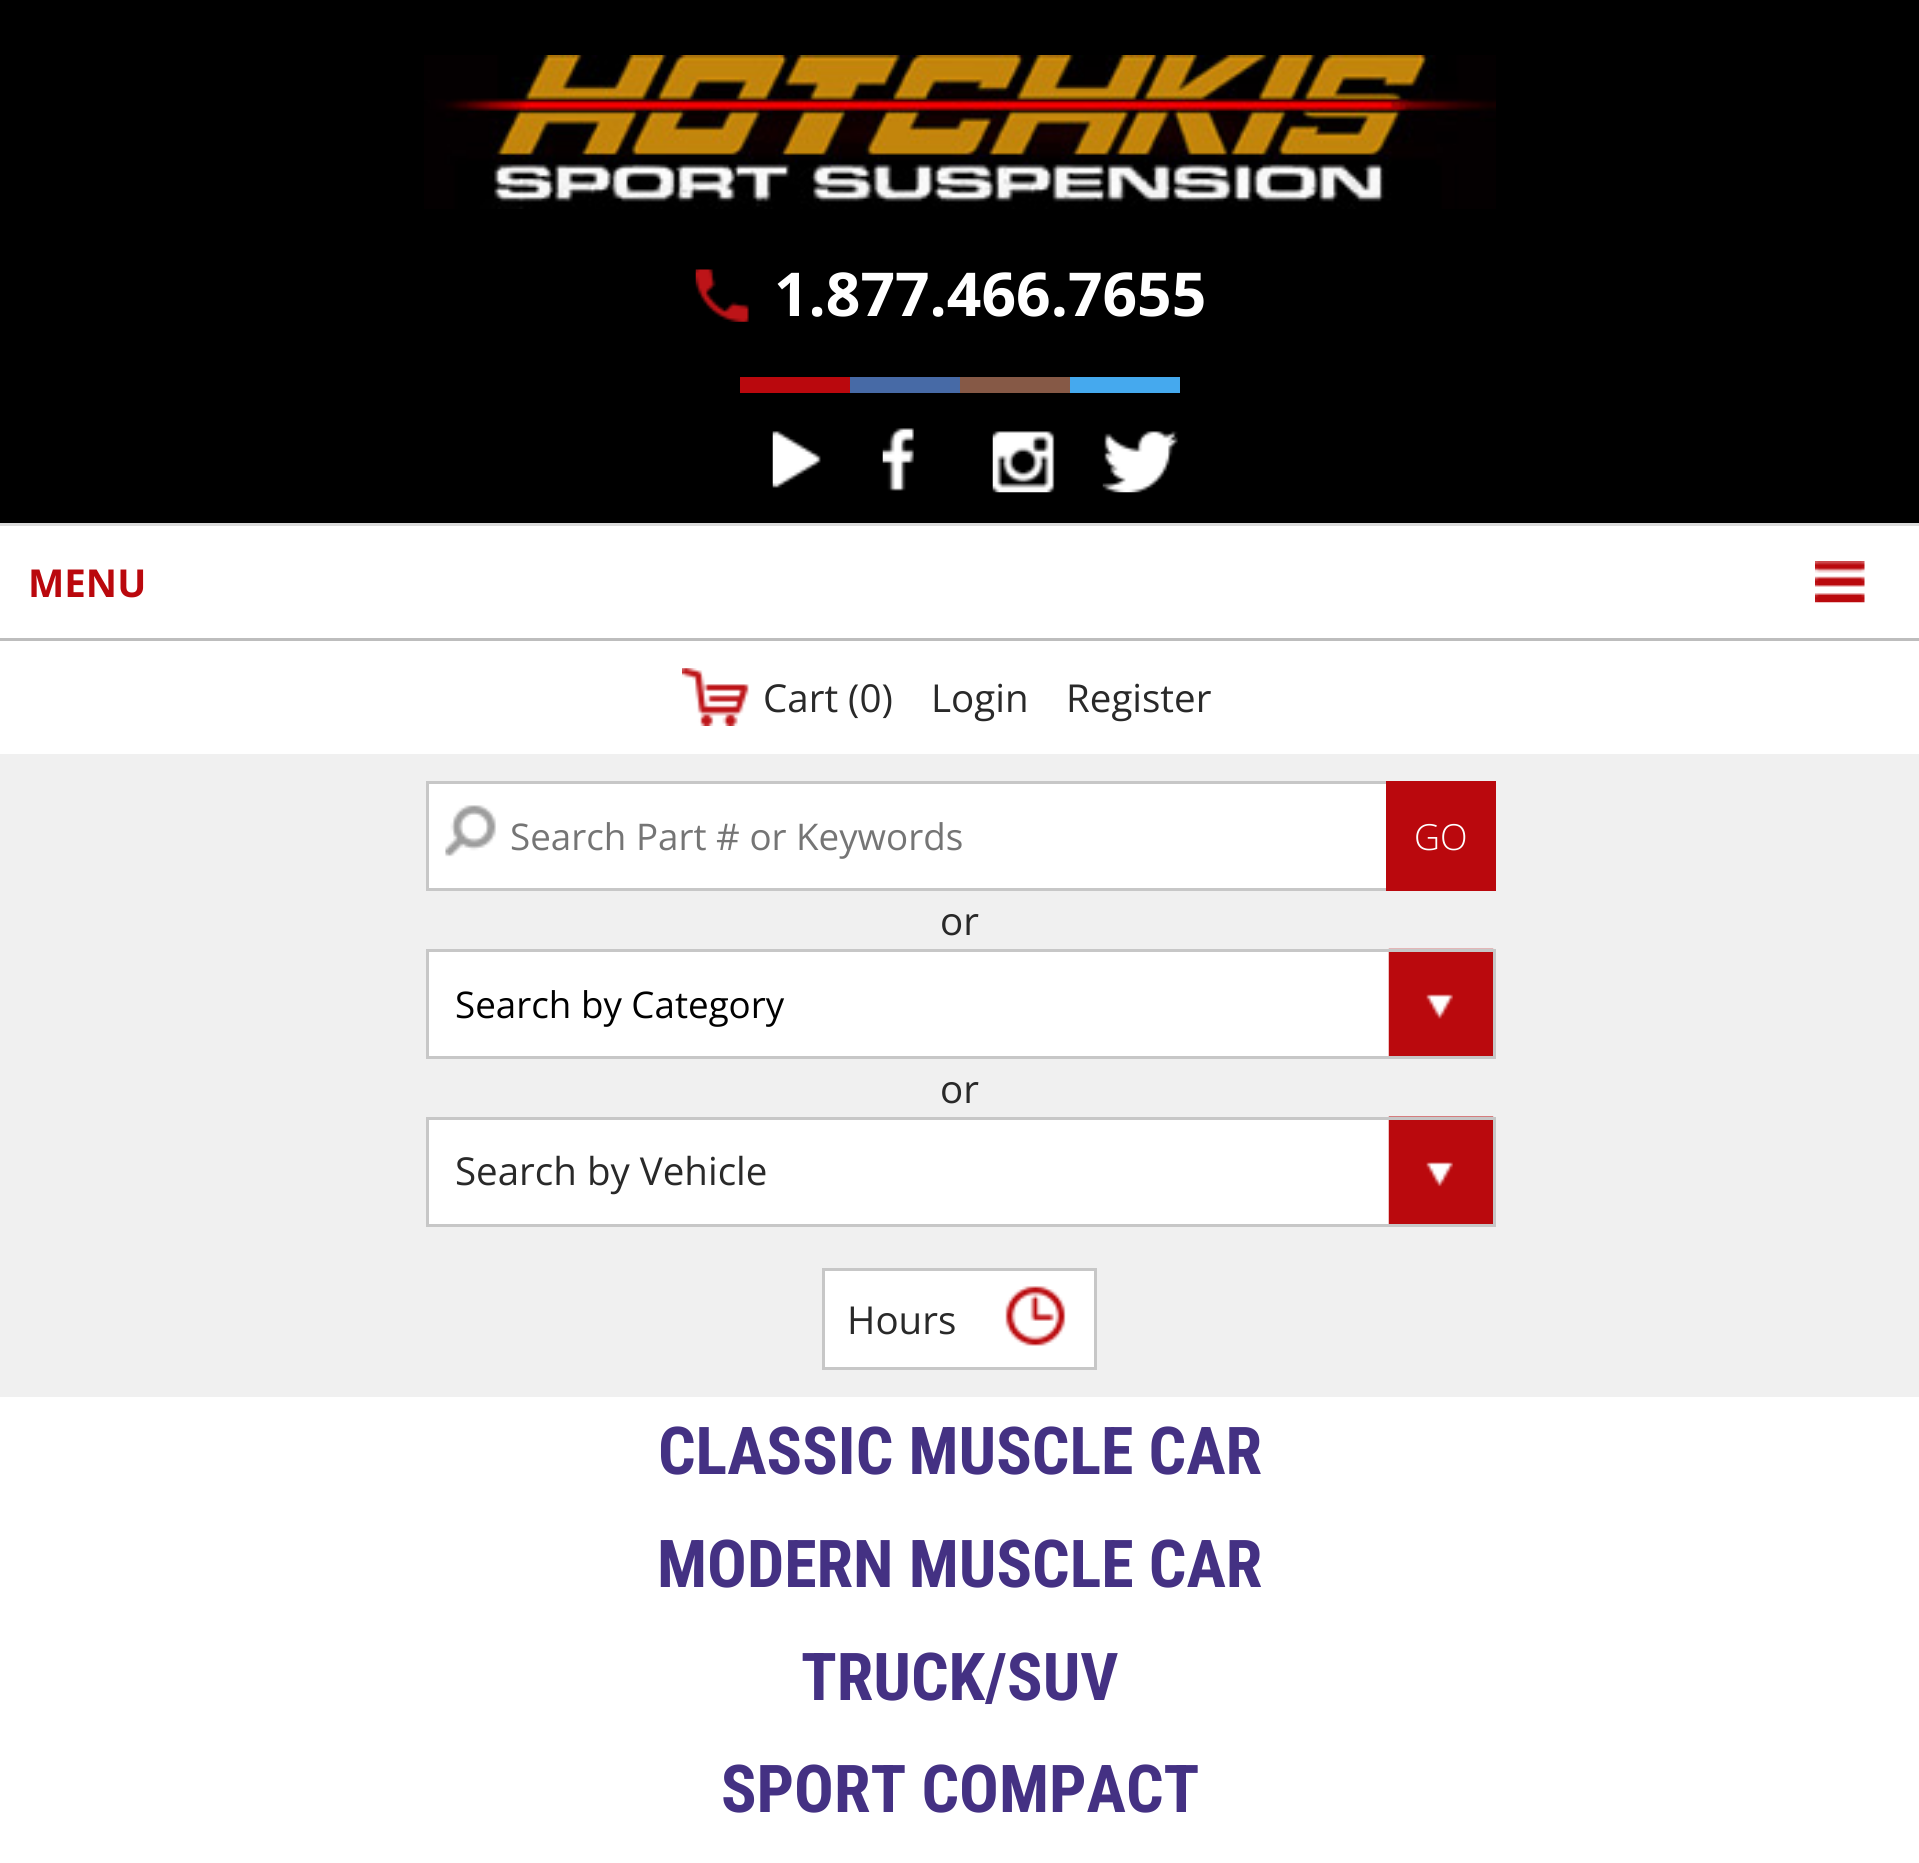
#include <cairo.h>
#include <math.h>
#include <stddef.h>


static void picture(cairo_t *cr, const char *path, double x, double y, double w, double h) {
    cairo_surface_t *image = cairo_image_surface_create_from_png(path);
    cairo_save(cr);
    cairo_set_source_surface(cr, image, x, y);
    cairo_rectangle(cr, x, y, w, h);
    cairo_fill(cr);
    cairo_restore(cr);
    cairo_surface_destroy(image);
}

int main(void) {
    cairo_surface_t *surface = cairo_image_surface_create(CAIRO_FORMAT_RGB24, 1919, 1863);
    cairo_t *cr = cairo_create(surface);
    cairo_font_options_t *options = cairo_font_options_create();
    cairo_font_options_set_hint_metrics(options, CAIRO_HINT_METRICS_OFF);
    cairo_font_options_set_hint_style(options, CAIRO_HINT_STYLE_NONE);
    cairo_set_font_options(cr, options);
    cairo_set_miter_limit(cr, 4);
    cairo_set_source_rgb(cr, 1, 1, 1);
    cairo_paint(cr);
    cairo_set_source_rgb(cr, 0, 0, 0);
    cairo_rectangle(cr, 0, 0, 1919, 523);
    cairo_fill(cr);
    cairo_set_source_rgb(cr, 0.859, 0.859, 0.859);
    cairo_rectangle(cr, 0, 523, 1919, 3);
    cairo_fill(cr);
    picture(cr, "img1.png", 424, 55, 1072, 154);
    picture(cr, "img2.png", 695, 269, 54, 53);
    cairo_select_font_face(cr, "Open Sans", CAIRO_FONT_SLANT_NORMAL, CAIRO_FONT_WEIGHT_BOLD);
    cairo_set_font_size(cr, 60.5);
    cairo_set_source_rgb(cr, 1, 1, 1);
    cairo_move_to(cr, 774, 316);
    cairo_show_text(cr, "1.877.466.7655");
    cairo_set_source_rgb(cr, 0.729, 0.035, 0.051);
    cairo_rectangle(cr, 740, 377, 110, 16);
    cairo_fill(cr);
    picture(cr, "img3.png", 772, 431, 49, 57);
    cairo_set_source_rgb(cr, 0.278, 0.416, 0.651);
    cairo_rectangle(cr, 850, 377, 110, 16);
    cairo_fill(cr);
    picture(cr, "img4.png", 882, 428, 32, 63);
    cairo_set_source_rgb(cr, 0.525, 0.349, 0.275);
    cairo_rectangle(cr, 960, 377, 110, 16);
    cairo_fill(cr);
    picture(cr, "img5.png", 992, 431, 63, 62);
    cairo_set_source_rgb(cr, 0.271, 0.663, 0.933);
    cairo_rectangle(cr, 1070, 377, 110, 16);
    cairo_fill(cr);
    picture(cr, "img6.png", 1102, 431, 76, 62);
    picture(cr, "img7.png", 1815, 561, 50, 42);
    cairo_set_source_rgb(cr, 0.741, 0.741, 0.741);
    cairo_rectangle(cr, 0, 638, 1919, 3);
    cairo_fill(cr);
    cairo_set_font_size(cr, 38.5);
    cairo_set_source_rgb(cr, 0.729, 0.035, 0.051);
    cairo_move_to(cr, 28, 597);
    cairo_show_text(cr, "MENU");
    picture(cr, "img8.png", 682, 668, 67, 58);
    cairo_select_font_face(cr, "Open Sans", CAIRO_FONT_SLANT_NORMAL, CAIRO_FONT_WEIGHT_NORMAL);
    cairo_set_source_rgb(cr, 0.161, 0.161, 0.161);
    cairo_move_to(cr, 763, 712);
    cairo_show_text(cr, "Cart (0)");
    cairo_move_to(cr, 931, 712);
    cairo_show_text(cr, "Login");
    cairo_move_to(cr, 1066, 712);
    cairo_show_text(cr, "Register");
    cairo_set_source_rgb(cr, 0.941, 0.941, 0.941);
    cairo_rectangle(cr, 0, 754, 1919, 643);
    cairo_fill(cr);
    cairo_set_source_rgb(cr, 1, 1, 1);
    cairo_rectangle(cr, 429, 784, 957, 104);
    cairo_fill(cr);
    picture(cr, "img9.png", 445, 805, 51, 52);
    cairo_rectangle(cr, 427.5, 782.5, 1067, 107);
    cairo_set_source_rgb(cr, 0.78, 0.78, 0.78);
    cairo_set_line_width(cr, 3);
    cairo_stroke(cr);
    cairo_set_font_size(cr, 36.75);
    cairo_set_source_rgb(cr, 0.459, 0.459, 0.459);
    cairo_move_to(cr, 510, 850);
    cairo_show_text(cr, "Search Part # or Keywords");
    cairo_set_source_rgb(cr, 0.729, 0.035, 0.051);
    cairo_rectangle(cr, 1386, 781, 110, 110);
    cairo_fill(cr);
    cairo_select_font_face(cr, "Open Sans Light", CAIRO_FONT_SLANT_NORMAL, CAIRO_FONT_WEIGHT_NORMAL);
    cairo_set_font_size(cr, 36);
    cairo_set_source_rgb(cr, 1, 1, 1);
    cairo_move_to(cr, 1414, 850);
    cairo_show_text(cr, "GO");
    cairo_select_font_face(cr, "Open Sans", CAIRO_FONT_SLANT_NORMAL, CAIRO_FONT_WEIGHT_NORMAL);
    cairo_set_font_size(cr, 38.5);
    cairo_set_source_rgb(cr, 0.161, 0.161, 0.161);
    cairo_move_to(cr, 940, 935);
    cairo_show_text(cr, "or");
    cairo_set_source_rgb(cr, 1, 1, 1);
    cairo_rectangle(cr, 429, 952, 960, 104);
    cairo_fill(cr);
    picture(cr, "img10.png", 1388, 948, 106, 108);
    cairo_rectangle(cr, 427.5, 950.5, 1067, 107);
    cairo_set_source_rgb(cr, 0.78, 0.78, 0.78);
    cairo_stroke(cr);
    cairo_set_font_size(cr, 36.75);
    cairo_set_source_rgb(cr, 0, 0, 0);
    cairo_move_to(cr, 455, 1018);
    cairo_show_text(cr, "Search by Category");
    cairo_set_font_size(cr, 38.5);
    cairo_set_source_rgb(cr, 0.161, 0.161, 0.161);
    cairo_move_to(cr, 940, 1103);
    cairo_show_text(cr, "or");
    cairo_set_source_rgb(cr, 1, 1, 1);
    cairo_rectangle(cr, 429, 1120, 960, 104);
    cairo_fill(cr);
    picture(cr, "img11.png", 1388, 1116, 106, 108);
    cairo_rectangle(cr, 427.5, 1118.5, 1067, 107);
    cairo_set_source_rgb(cr, 0.78, 0.78, 0.78);
    cairo_stroke(cr);
    cairo_set_source_rgb(cr, 0.161, 0.161, 0.161);
    cairo_move_to(cr, 455, 1185);
    cairo_show_text(cr, "Search by Vehicle");
    cairo_set_source_rgb(cr, 1, 1, 1);
    cairo_rectangle(cr, 825, 1271, 269, 96);
    cairo_fill(cr);
    picture(cr, "img12.png", 1005, 1286, 61, 60);
    cairo_rectangle(cr, 823.5, 1269.5, 272, 99);
    cairo_set_source_rgb(cr, 0.78, 0.78, 0.78);
    cairo_stroke(cr);
    cairo_set_source_rgb(cr, 0.161, 0.161, 0.161);
    cairo_move_to(cr, 847, 1334);
    cairo_show_text(cr, "Hours");
    cairo_select_font_face(cr, "Roboto Condensed", CAIRO_FONT_SLANT_NORMAL, CAIRO_FONT_WEIGHT_BOLD);
    cairo_set_font_size(cr, 66);
    cairo_set_source_rgb(cr, 0.267, 0.192, 0.514);
    cairo_move_to(cr, 658, 1474);
    cairo_show_text(cr, "CLASSIC MUSCLE CAR");
    cairo_move_to(cr, 657, 1587);
    cairo_show_text(cr, "MODERN MUSCLE CAR");
    cairo_move_to(cr, 801, 1700);
    cairo_show_text(cr, "TRUCK/SUV");
    cairo_move_to(cr, 721, 1812);
    cairo_show_text(cr, "SPORT COMPACT");
    cairo_surface_write_to_png(surface, "page.png");
    cairo_font_options_destroy(options);
    cairo_destroy(cr);
    cairo_surface_destroy(surface);
    return 0;
}
